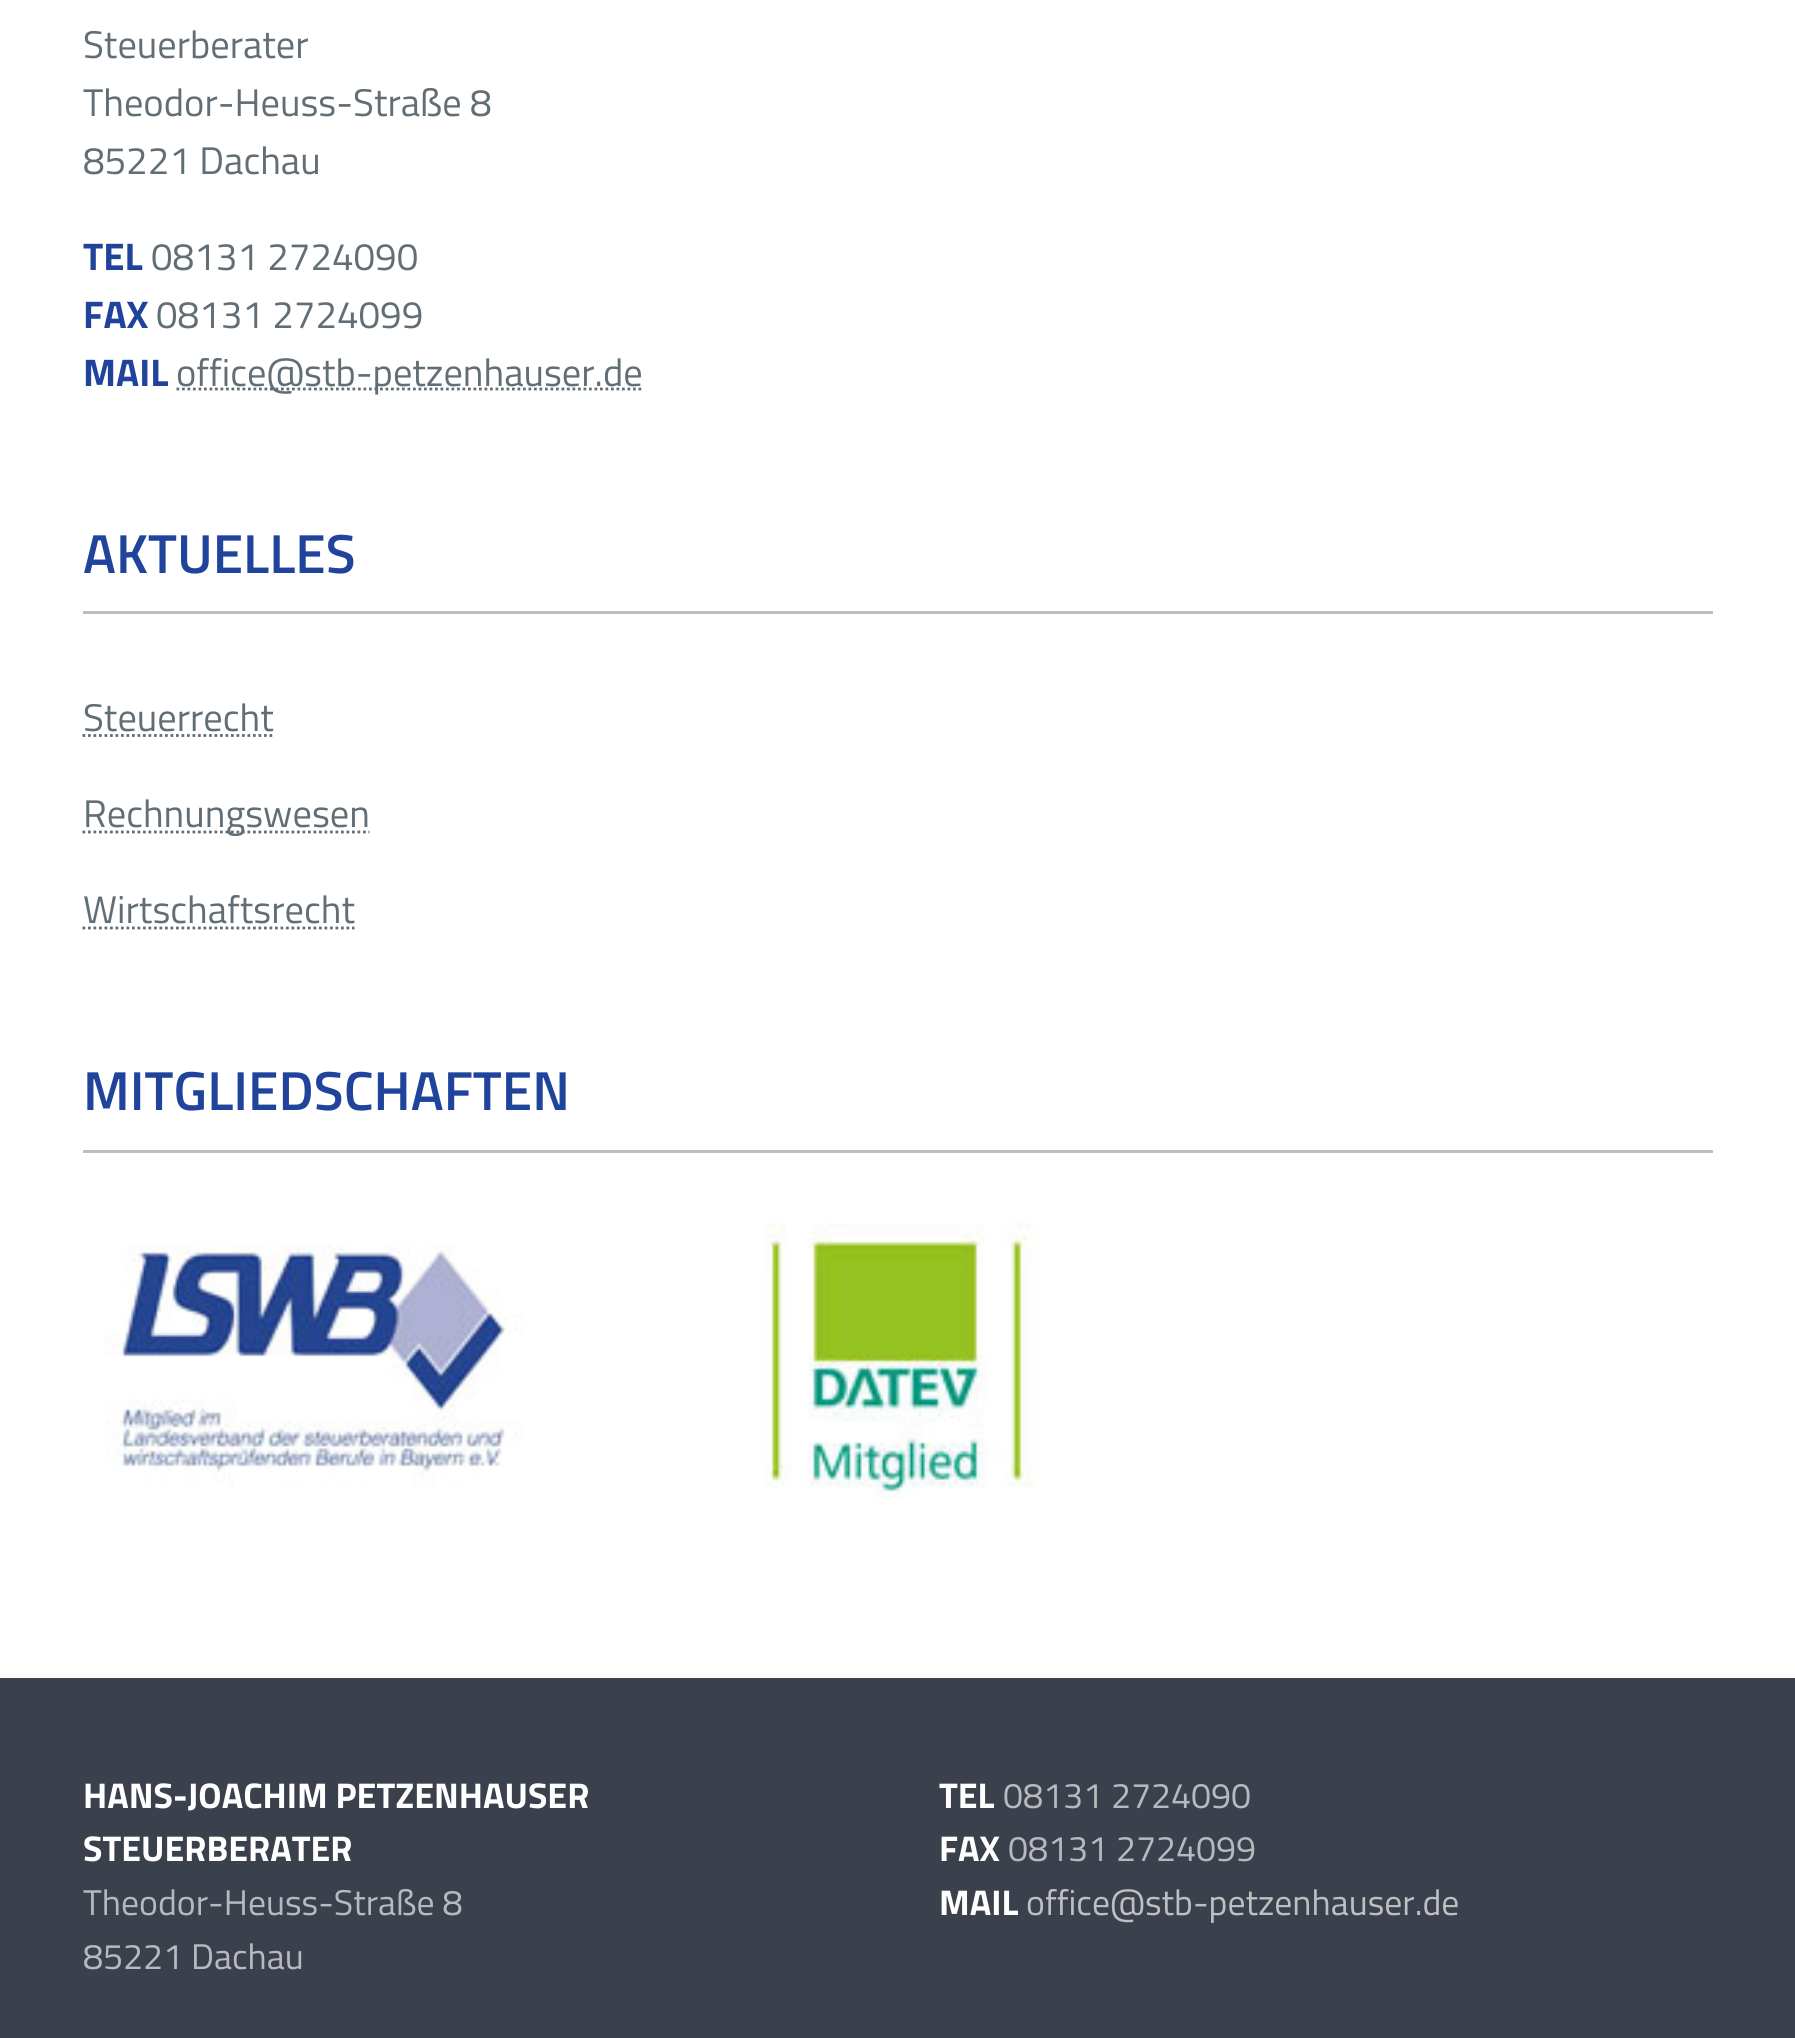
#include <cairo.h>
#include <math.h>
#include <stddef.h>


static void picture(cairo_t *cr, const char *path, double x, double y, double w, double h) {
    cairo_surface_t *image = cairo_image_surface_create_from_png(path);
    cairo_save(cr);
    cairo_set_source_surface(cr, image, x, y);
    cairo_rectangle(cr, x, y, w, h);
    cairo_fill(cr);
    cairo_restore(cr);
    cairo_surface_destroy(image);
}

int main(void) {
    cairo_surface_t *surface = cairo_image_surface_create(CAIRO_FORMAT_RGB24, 1795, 2038);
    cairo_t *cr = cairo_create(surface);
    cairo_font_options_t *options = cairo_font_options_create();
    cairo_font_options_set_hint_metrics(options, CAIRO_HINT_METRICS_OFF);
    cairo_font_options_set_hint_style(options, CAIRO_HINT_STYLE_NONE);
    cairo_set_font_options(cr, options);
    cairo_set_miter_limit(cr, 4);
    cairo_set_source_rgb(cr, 1, 1, 1);
    cairo_paint(cr);
    cairo_select_font_face(cr, "Titillium Web", CAIRO_FONT_SLANT_NORMAL, CAIRO_FONT_WEIGHT_NORMAL);
    cairo_set_font_size(cr, 38.5);
    cairo_set_source_rgb(cr, 0.384, 0.431, 0.459);
    cairo_move_to(cr, 83, 58);
    cairo_show_text(cr, "Steuerberater");
    cairo_move_to(cr, 83, 116);
    cairo_show_text(cr, "Theodor-Heuss-Straße 8");
    cairo_move_to(cr, 83, 174);
    cairo_show_text(cr, "85221 Dachau");
    cairo_select_font_face(cr, "Titillium Web", CAIRO_FONT_SLANT_NORMAL, CAIRO_FONT_WEIGHT_BOLD);
    cairo_set_source_rgb(cr, 0.125, 0.267, 0.608);
    cairo_move_to(cr, 83, 270);
    cairo_show_text(cr, "TEL");
    cairo_select_font_face(cr, "Titillium Web", CAIRO_FONT_SLANT_NORMAL, CAIRO_FONT_WEIGHT_NORMAL);
    cairo_set_source_rgb(cr, 0.384, 0.431, 0.459);
    cairo_move_to(cr, 151, 270);
    cairo_show_text(cr, "08131 2724090");
    cairo_select_font_face(cr, "Titillium Web", CAIRO_FONT_SLANT_NORMAL, CAIRO_FONT_WEIGHT_BOLD);
    cairo_set_source_rgb(cr, 0.125, 0.267, 0.608);
    cairo_move_to(cr, 83, 328);
    cairo_show_text(cr, "FAX");
    cairo_select_font_face(cr, "Titillium Web", CAIRO_FONT_SLANT_NORMAL, CAIRO_FONT_WEIGHT_NORMAL);
    cairo_set_source_rgb(cr, 0.384, 0.431, 0.459);
    cairo_move_to(cr, 156, 328);
    cairo_show_text(cr, "08131 2724099");
    cairo_select_font_face(cr, "Titillium Web", CAIRO_FONT_SLANT_NORMAL, CAIRO_FONT_WEIGHT_BOLD);
    cairo_set_source_rgb(cr, 0.125, 0.267, 0.608);
    cairo_move_to(cr, 83, 386);
    cairo_show_text(cr, "MAIL");
    cairo_new_path(cr);
    cairo_move_to(cr, 176.5, 389);
    cairo_line_to(cr, 643, 389);
    cairo_set_source_rgb(cr, 0.384, 0.431, 0.459);
    cairo_set_line_width(cr, 2.8);
    cairo_set_dash(cr, (double[]){2.75, 2.75}, 2, 0);
    cairo_stroke(cr);
    cairo_select_font_face(cr, "Titillium Web", CAIRO_FONT_SLANT_NORMAL, CAIRO_FONT_WEIGHT_NORMAL);
    cairo_move_to(cr, 176, 386);
    cairo_show_text(cr, "office@stb-petzenhauser.de");
    cairo_set_source_rgb(cr, 0.741, 0.741, 0.737);
    cairo_rectangle(cr, 83, 611, 1630, 3);
    cairo_fill(cr);
    cairo_select_font_face(cr, "Titillium Web SemiBold", CAIRO_FONT_SLANT_NORMAL, CAIRO_FONT_WEIGHT_NORMAL);
    cairo_set_font_size(cr, 55);
    cairo_set_source_rgb(cr, 0.125, 0.267, 0.608);
    cairo_move_to(cr, 83, 573);
    cairo_show_text(cr, "AKTUELLES");
    cairo_select_font_face(cr, "Titillium Web", CAIRO_FONT_SLANT_NORMAL, CAIRO_FONT_WEIGHT_NORMAL);
    cairo_set_font_size(cr, 38.5);
    cairo_set_source_rgb(cr, 0.384, 0.431, 0.459);
    cairo_move_to(cr, 83, 731);
    cairo_show_text(cr, "Steuerrecht");
    cairo_new_path(cr);
    cairo_move_to(cr, 82.5, 735.5);
    cairo_line_to(cr, 273.5, 735.5);
    cairo_stroke(cr);
    cairo_new_path(cr);
    cairo_move_to(cr, 82.5, 832);
    cairo_line_to(cr, 369.5, 832);
    cairo_stroke(cr);
    cairo_move_to(cr, 83, 827);
    cairo_show_text(cr, "Rechnungswesen");
    cairo_move_to(cr, 83, 923);
    cairo_show_text(cr, "Wirtschaftsrecht");
    cairo_new_path(cr);
    cairo_move_to(cr, 82.5, 928);
    cairo_line_to(cr, 354.5, 928);
    cairo_stroke(cr);
    cairo_set_source_rgb(cr, 0.741, 0.741, 0.737);
    cairo_rectangle(cr, 83, 1150, 1630, 3);
    cairo_fill(cr);
    cairo_select_font_face(cr, "Titillium Web SemiBold", CAIRO_FONT_SLANT_NORMAL, CAIRO_FONT_WEIGHT_NORMAL);
    cairo_set_font_size(cr, 55);
    cairo_set_source_rgb(cr, 0.125, 0.267, 0.608);
    cairo_move_to(cr, 83, 1110);
    cairo_show_text(cr, "MITGLIEDSCHAFTEN");
    picture(cr, "img1.png", 104, 1223, 931, 275);
    cairo_set_source_rgb(cr, 0.231, 0.251, 0.302);
    cairo_rectangle(cr, 0, 1678, 1795, 360);
    cairo_fill(cr);
    cairo_select_font_face(cr, "Titillium Web", CAIRO_FONT_SLANT_NORMAL, CAIRO_FONT_WEIGHT_BOLD);
    cairo_set_font_size(cr, 35.75);
    cairo_set_source_rgb(cr, 1, 1, 1);
    cairo_move_to(cr, 83, 1808);
    cairo_show_text(cr, "HANS-JOACHIM PETZENHAUSER");
    cairo_move_to(cr, 83, 1861);
    cairo_show_text(cr, "STEUERBERATER");
    cairo_select_font_face(cr, "Titillium Web", CAIRO_FONT_SLANT_NORMAL, CAIRO_FONT_WEIGHT_NORMAL);
    cairo_set_source_rgb(cr, 0.722, 0.725, 0.737);
    cairo_move_to(cr, 83, 1915);
    cairo_show_text(cr, "Theodor-Heuss-Straße 8");
    cairo_move_to(cr, 83, 1969);
    cairo_show_text(cr, "85221 Dachau");
    cairo_select_font_face(cr, "Titillium Web", CAIRO_FONT_SLANT_NORMAL, CAIRO_FONT_WEIGHT_BOLD);
    cairo_set_source_rgb(cr, 1, 1, 1);
    cairo_move_to(cr, 939, 1808);
    cairo_show_text(cr, "TEL");
    cairo_select_font_face(cr, "Titillium Web", CAIRO_FONT_SLANT_NORMAL, CAIRO_FONT_WEIGHT_NORMAL);
    cairo_set_source_rgb(cr, 0.722, 0.725, 0.737);
    cairo_move_to(cr, 1003, 1808);
    cairo_show_text(cr, "08131 2724090");
    cairo_select_font_face(cr, "Titillium Web", CAIRO_FONT_SLANT_NORMAL, CAIRO_FONT_WEIGHT_BOLD);
    cairo_set_source_rgb(cr, 1, 1, 1);
    cairo_move_to(cr, 939, 1861);
    cairo_show_text(cr, "FAX");
    cairo_select_font_face(cr, "Titillium Web", CAIRO_FONT_SLANT_NORMAL, CAIRO_FONT_WEIGHT_NORMAL);
    cairo_set_source_rgb(cr, 0.722, 0.725, 0.737);
    cairo_move_to(cr, 1008, 1861);
    cairo_show_text(cr, "08131 2724099");
    cairo_select_font_face(cr, "Titillium Web", CAIRO_FONT_SLANT_NORMAL, CAIRO_FONT_WEIGHT_BOLD);
    cairo_set_source_rgb(cr, 1, 1, 1);
    cairo_move_to(cr, 939, 1915);
    cairo_show_text(cr, "MAIL");
    cairo_select_font_face(cr, "Titillium Web", CAIRO_FONT_SLANT_NORMAL, CAIRO_FONT_WEIGHT_NORMAL);
    cairo_set_source_rgb(cr, 0.749, 0.749, 0.749);
    cairo_move_to(cr, 1026, 1915);
    cairo_show_text(cr, "office@stb-petzenhauser.de");
    cairo_surface_write_to_png(surface, "page.png");
    cairo_font_options_destroy(options);
    cairo_destroy(cr);
    cairo_surface_destroy(surface);
    return 0;
}
